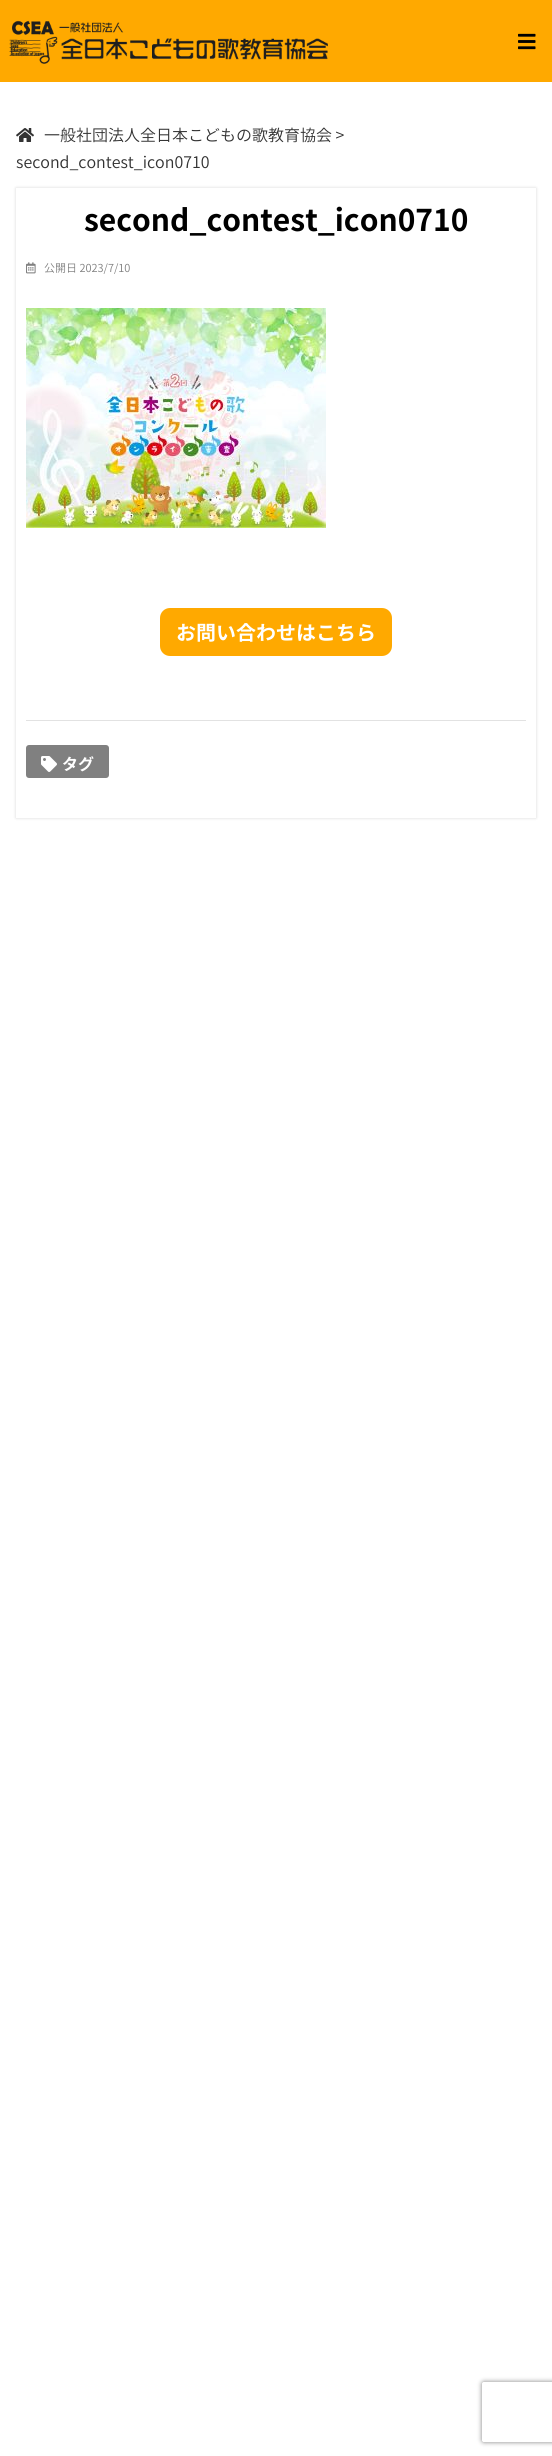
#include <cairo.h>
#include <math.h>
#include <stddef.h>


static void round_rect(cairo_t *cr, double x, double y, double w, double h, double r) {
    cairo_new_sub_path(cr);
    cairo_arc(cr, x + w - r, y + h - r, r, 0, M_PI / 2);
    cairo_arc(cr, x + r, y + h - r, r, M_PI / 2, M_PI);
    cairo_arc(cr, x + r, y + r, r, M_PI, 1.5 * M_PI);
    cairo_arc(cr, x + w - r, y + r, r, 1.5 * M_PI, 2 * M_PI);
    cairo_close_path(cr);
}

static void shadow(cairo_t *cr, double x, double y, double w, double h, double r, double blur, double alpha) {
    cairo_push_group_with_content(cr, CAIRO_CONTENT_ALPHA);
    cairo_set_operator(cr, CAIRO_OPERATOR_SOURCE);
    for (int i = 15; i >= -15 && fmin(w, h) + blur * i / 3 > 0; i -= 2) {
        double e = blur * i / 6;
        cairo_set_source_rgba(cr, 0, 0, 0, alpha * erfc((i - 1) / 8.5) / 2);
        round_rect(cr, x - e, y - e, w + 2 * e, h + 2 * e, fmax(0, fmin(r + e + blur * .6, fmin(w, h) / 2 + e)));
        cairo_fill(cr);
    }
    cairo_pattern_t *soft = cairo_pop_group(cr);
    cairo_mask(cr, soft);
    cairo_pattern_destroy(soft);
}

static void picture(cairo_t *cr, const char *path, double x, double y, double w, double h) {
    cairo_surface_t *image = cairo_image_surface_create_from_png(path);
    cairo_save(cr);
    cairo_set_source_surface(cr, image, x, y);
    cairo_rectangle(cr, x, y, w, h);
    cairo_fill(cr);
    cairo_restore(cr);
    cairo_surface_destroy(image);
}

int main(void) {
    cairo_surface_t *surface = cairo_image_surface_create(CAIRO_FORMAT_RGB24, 552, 2456);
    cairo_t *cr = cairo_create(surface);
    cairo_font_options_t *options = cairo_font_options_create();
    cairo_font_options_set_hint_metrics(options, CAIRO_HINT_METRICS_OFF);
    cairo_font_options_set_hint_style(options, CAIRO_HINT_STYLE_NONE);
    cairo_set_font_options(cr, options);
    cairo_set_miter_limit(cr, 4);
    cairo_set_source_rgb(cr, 1, 1, 1);
    cairo_paint(cr);
    cairo_set_source_rgb(cr, 1, 0.663, 0);
    cairo_rectangle(cr, 0, 0, 552, 82);
    cairo_fill(cr);
    picture(cr, "img1.png", 9, 20, 319, 44);
    picture(cr, "img2.png", 518, 33, 18, 17);
    picture(cr, "img3.png", 16, 128, 18, 14);
    cairo_select_font_face(cr, "Noto Sans JP Light", CAIRO_FONT_SLANT_NORMAL, CAIRO_FONT_WEIGHT_NORMAL);
    cairo_set_font_size(cr, 16);
    cairo_set_source_rgb(cr, 0.2, 0.2, 0.2);
    cairo_move_to(cr, 44, 141);
    cairo_show_text(cr, "一般社団法人全日本こどもの歌教育協会 >");
    cairo_move_to(cr, 16, 168);
    cairo_show_text(cr, "second_contest_icon0710");
    cairo_save(cr);
    cairo_set_fill_rule(cr, CAIRO_FILL_RULE_EVEN_ODD);
    cairo_new_path(cr);
    cairo_move_to(cr, 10, 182);
    cairo_line_to(cr, 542, 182);
    cairo_line_to(cr, 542, 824);
    cairo_line_to(cr, 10, 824);
    cairo_close_path(cr);
    cairo_move_to(cr, 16, 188);
    cairo_line_to(cr, 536, 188);
    cairo_line_to(cr, 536, 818);
    cairo_line_to(cr, 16, 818);
    cairo_close_path(cr);
    cairo_clip(cr);
    cairo_set_source_rgb(cr, 0, 0, 0);
    shadow(cr, 16, 188, 520, 630, 0, 1.5, 0.16);
    cairo_restore(cr);
    cairo_select_font_face(cr, "Noto Sans JP", CAIRO_FONT_SLANT_NORMAL, CAIRO_FONT_WEIGHT_BOLD);
    cairo_set_font_size(cr, 30);
    cairo_set_source_rgb(cr, 0, 0, 0);
    cairo_move_to(cr, 84, 231);
    cairo_show_text(cr, "second_contest_icon0710");
    picture(cr, "img4.png", 26, 262, 10, 12);
    cairo_select_font_face(cr, "Noto Sans JP Light", CAIRO_FONT_SLANT_NORMAL, CAIRO_FONT_WEIGHT_NORMAL);
    cairo_set_font_size(cr, 11);
    cairo_set_source_rgb(cr, 0.502, 0.502, 0.502);
    cairo_move_to(cr, 44, 272);
    cairo_show_text(cr, "公開日 2023/7/10");
    picture(cr, "img5.png", 26, 308, 300, 220);
    cairo_set_source_rgb(cr, 1, 0.663, 0);
    round_rect(cr, 160, 608, 232, 48, 10);
    cairo_fill(cr);
    cairo_select_font_face(cr, "Noto Sans JP", CAIRO_FONT_SLANT_NORMAL, CAIRO_FONT_WEIGHT_BOLD);
    cairo_set_font_size(cr, 20);
    cairo_set_source_rgb(cr, 1, 1, 1);
    cairo_move_to(cr, 176, 640);
    cairo_show_text(cr, "お問い合わせはこちら");
    cairo_set_source_rgb(cr, 0.886, 0.886, 0.886);
    cairo_rectangle(cr, 26, 720, 500, 1);
    cairo_fill(cr);
    cairo_set_source_rgb(cr, 0.502, 0.502, 0.502);
    round_rect(cr, 26, 745, 83, 33, 3);
    cairo_fill(cr);
    picture(cr, "img6.png", 41, 756, 16, 16);
    cairo_set_font_size(cr, 16);
    cairo_set_source_rgb(cr, 1, 1, 1);
    cairo_move_to(cr, 62, 770);
    cairo_show_text(cr, "タグ");
    cairo_save(cr);
    cairo_set_fill_rule(cr, CAIRO_FILL_RULE_EVEN_ODD);
    cairo_new_path(cr);
    cairo_move_to(cr, 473, 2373);
    cairo_line_to(cr, 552, 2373);
    cairo_line_to(cr, 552, 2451);
    cairo_line_to(cr, 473, 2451);
    cairo_close_path(cr);
    cairo_move_to(cr, 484, 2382);
    cairo_line_to(cr, 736, 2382);
    cairo_curve_to(cr, 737, 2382, 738, 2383, 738, 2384);
    cairo_line_to(cr, 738, 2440);
    cairo_curve_to(cr, 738, 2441, 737, 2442, 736, 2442);
    cairo_line_to(cr, 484, 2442);
    cairo_curve_to(cr, 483, 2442, 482, 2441, 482, 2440);
    cairo_line_to(cr, 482, 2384);
    cairo_curve_to(cr, 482, 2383, 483, 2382, 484, 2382);
    cairo_close_path(cr);
    cairo_clip(cr);
    cairo_set_source_rgb(cr, 0.502, 0.502, 0.502);
    shadow(cr, 482, 2382, 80, 60, 2, 2.5, 1);
    cairo_restore(cr);
    cairo_surface_write_to_png(surface, "page.png");
    cairo_font_options_destroy(options);
    cairo_destroy(cr);
    cairo_surface_destroy(surface);
    return 0;
}
